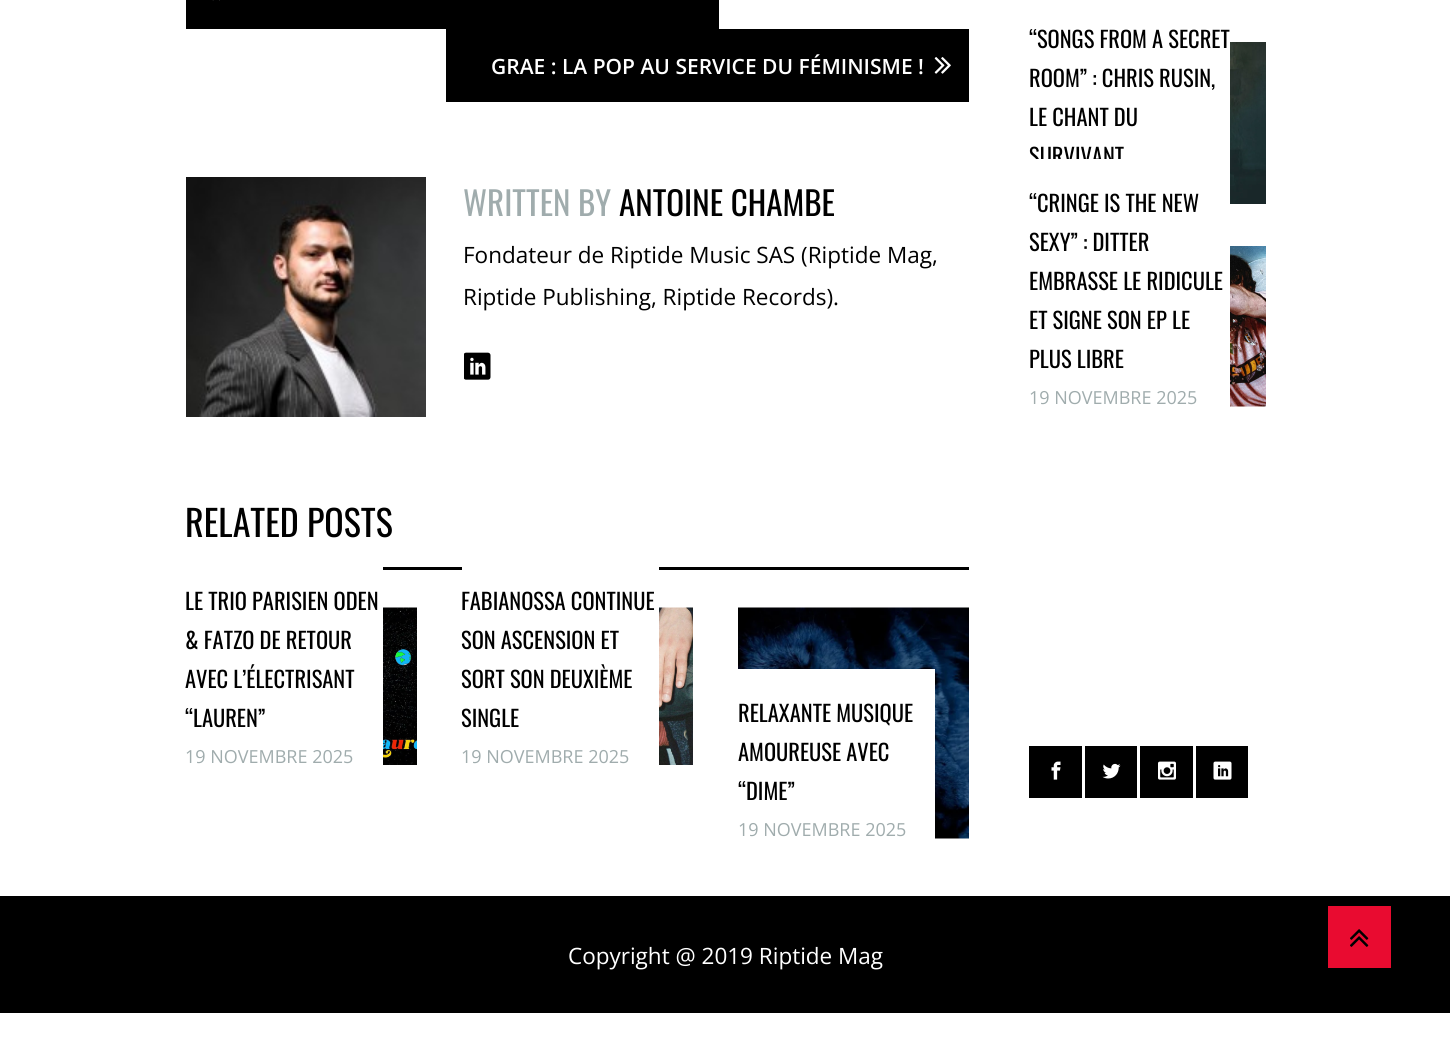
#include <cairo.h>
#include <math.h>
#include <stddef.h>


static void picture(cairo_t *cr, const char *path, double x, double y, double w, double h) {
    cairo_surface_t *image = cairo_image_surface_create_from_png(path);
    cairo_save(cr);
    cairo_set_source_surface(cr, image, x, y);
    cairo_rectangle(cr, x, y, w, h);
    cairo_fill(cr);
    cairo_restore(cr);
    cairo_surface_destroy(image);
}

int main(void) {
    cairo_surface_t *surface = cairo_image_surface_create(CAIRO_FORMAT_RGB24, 1450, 1057);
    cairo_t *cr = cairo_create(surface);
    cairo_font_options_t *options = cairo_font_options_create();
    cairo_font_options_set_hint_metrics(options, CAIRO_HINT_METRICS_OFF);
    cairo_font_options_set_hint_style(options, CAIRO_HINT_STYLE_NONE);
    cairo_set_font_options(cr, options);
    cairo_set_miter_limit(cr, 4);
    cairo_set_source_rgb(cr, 1, 1, 1);
    cairo_paint(cr);
    cairo_set_source_rgb(cr, 0, 0, 0);
    cairo_rectangle(cr, 186, 0, 533, 29);
    cairo_fill(cr);
    picture(cr, "img1.png", 212, 0, 8, 1);
    cairo_rectangle(cr, 446, 29, 523, 73);
    cairo_fill(cr);
    cairo_select_font_face(cr, "Open Sans SemiBold", CAIRO_FONT_SLANT_NORMAL, CAIRO_FONT_WEIGHT_NORMAL);
    cairo_set_font_size(cr, 21);
    cairo_set_source_rgb(cr, 1, 1, 1);
    cairo_move_to(cr, 491, 74);
    cairo_show_text(cr, "GRAE : LA POP AU SERVICE DU FÉMINISME !");
    picture(cr, "img2.png", 934, 57, 17, 17);
    picture(cr, "img3.png", 186, 177, 240, 240);
    cairo_select_font_face(cr, "Oswald", CAIRO_FONT_SLANT_NORMAL, CAIRO_FONT_WEIGHT_NORMAL);
    cairo_set_font_size(cr, 33);
    cairo_set_source_rgb(cr, 0.627, 0.675, 0.678);
    cairo_move_to(cr, 463, 216);
    cairo_show_text(cr, "WRITTEN BY");
    cairo_set_source_rgb(cr, 0, 0, 0);
    cairo_move_to(cr, 619, 216);
    cairo_show_text(cr, "ANTOINE CHAMBE");
    cairo_select_font_face(cr, "Open Sans", CAIRO_FONT_SLANT_NORMAL, CAIRO_FONT_WEIGHT_NORMAL);
    cairo_set_font_size(cr, 22.5);
    cairo_move_to(cr, 463, 263);
    cairo_show_text(cr, "Fondateur de Riptide Music SAS (Riptide Mag,");
    cairo_move_to(cr, 463, 305);
    cairo_show_text(cr, "Riptide Publishing, Riptide Records).");
    picture(cr, "img4.png", 464, 352, 27, 28);
    cairo_rectangle(cr, 383, 567, 586, 3);
    cairo_fill(cr);
    cairo_select_font_face(cr, "Oswald", CAIRO_FONT_SLANT_NORMAL, CAIRO_FONT_WEIGHT_NORMAL);
    cairo_set_font_size(cr, 36);
    cairo_move_to(cr, 185, 537);
    cairo_show_text(cr, "RELATED POSTS");
    cairo_set_font_size(cr, 22.5);
    cairo_move_to(cr, 185, 610);
    cairo_show_text(cr, "LE TRIO PARISIEN ODEN");
    cairo_move_to(cr, 185, 649);
    cairo_show_text(cr, "& FATZO DE RETOUR");
    cairo_move_to(cr, 185, 688);
    cairo_show_text(cr, "AVEC L’ÉLECTRISANT");
    cairo_move_to(cr, 185, 727);
    cairo_show_text(cr, "“LAUREN”");
    cairo_select_font_face(cr, "Open Sans", CAIRO_FONT_SLANT_NORMAL, CAIRO_FONT_WEIGHT_NORMAL);
    cairo_set_font_size(cr, 18);
    cairo_set_source_rgb(cr, 0.627, 0.675, 0.678);
    cairo_move_to(cr, 185, 763);
    cairo_show_text(cr, "19 NOVEMBRE 2025");
    picture(cr, "img5.png", 383, 607, 34, 158);
    cairo_set_source_rgb(cr, 1, 1, 1);
    cairo_rectangle(cr, 462, 567, 197, 3);
    cairo_fill(cr);
    cairo_select_font_face(cr, "Oswald", CAIRO_FONT_SLANT_NORMAL, CAIRO_FONT_WEIGHT_NORMAL);
    cairo_set_font_size(cr, 22.5);
    cairo_set_source_rgb(cr, 0, 0, 0);
    cairo_move_to(cr, 461, 610);
    cairo_show_text(cr, "FABIANOSSA CONTINUE");
    cairo_move_to(cr, 461, 649);
    cairo_show_text(cr, "SON ASCENSION ET");
    cairo_move_to(cr, 461, 688);
    cairo_show_text(cr, "SORT SON DEUXIÈME");
    cairo_move_to(cr, 461, 727);
    cairo_show_text(cr, "SINGLE");
    cairo_select_font_face(cr, "Open Sans", CAIRO_FONT_SLANT_NORMAL, CAIRO_FONT_WEIGHT_NORMAL);
    cairo_set_font_size(cr, 18);
    cairo_set_source_rgb(cr, 0.627, 0.675, 0.678);
    cairo_move_to(cr, 461, 763);
    cairo_show_text(cr, "19 NOVEMBRE 2025");
    picture(cr, "img6.png", 659, 607, 34, 158);
    picture(cr, "img7.png", 738, 607, 231, 232);
    cairo_set_source_rgb(cr, 1, 1, 1);
    cairo_rectangle(cr, 738, 669, 197, 170);
    cairo_fill(cr);
    cairo_select_font_face(cr, "Oswald", CAIRO_FONT_SLANT_NORMAL, CAIRO_FONT_WEIGHT_NORMAL);
    cairo_set_font_size(cr, 22.5);
    cairo_set_source_rgb(cr, 0, 0, 0);
    cairo_move_to(cr, 738, 722);
    cairo_show_text(cr, "RELAXANTE MUSIQUE");
    cairo_move_to(cr, 738, 761);
    cairo_show_text(cr, "AMOUREUSE AVEC");
    cairo_move_to(cr, 738, 800);
    cairo_show_text(cr, "“DIME”");
    cairo_select_font_face(cr, "Open Sans", CAIRO_FONT_SLANT_NORMAL, CAIRO_FONT_WEIGHT_NORMAL);
    cairo_set_font_size(cr, 18);
    cairo_set_source_rgb(cr, 0.627, 0.675, 0.678);
    cairo_move_to(cr, 738, 836);
    cairo_show_text(cr, "19 NOVEMBRE 2025");
    cairo_select_font_face(cr, "Oswald", CAIRO_FONT_SLANT_NORMAL, CAIRO_FONT_WEIGHT_NORMAL);
    cairo_set_font_size(cr, 22.5);
    cairo_set_source_rgb(cr, 0, 0, 0);
    cairo_move_to(cr, 1029, 48);
    cairo_show_text(cr, "“SONGS FROM A SECRET");
    cairo_move_to(cr, 1029, 87);
    cairo_show_text(cr, "ROOM” : CHRIS RUSIN,");
    cairo_move_to(cr, 1029, 126);
    cairo_show_text(cr, "LE CHANT DU");
    cairo_move_to(cr, 1029, 165);
    cairo_show_text(cr, "SURVIVANT");
    picture(cr, "img8.png", 1230, 42, 36, 162);
    cairo_set_source_rgb(cr, 1, 1, 1);
    cairo_rectangle(cr, 1029, 159, 92, 7);
    cairo_fill(cr);
    cairo_set_source_rgb(cr, 0, 0, 0);
    cairo_move_to(cr, 1029, 212);
    cairo_show_text(cr, "“CRINGE IS THE NEW");
    cairo_move_to(cr, 1029, 251);
    cairo_show_text(cr, "SEXY” : DITTER");
    cairo_move_to(cr, 1029, 290);
    cairo_show_text(cr, "EMBRASSE LE RIDICULE");
    cairo_move_to(cr, 1029, 329);
    cairo_show_text(cr, "ET SIGNE SON EP LE");
    cairo_move_to(cr, 1029, 368);
    cairo_show_text(cr, "PLUS LIBRE");
    cairo_select_font_face(cr, "Open Sans", CAIRO_FONT_SLANT_NORMAL, CAIRO_FONT_WEIGHT_NORMAL);
    cairo_set_font_size(cr, 18);
    cairo_set_source_rgb(cr, 0.627, 0.675, 0.678);
    cairo_move_to(cr, 1029, 404);
    cairo_show_text(cr, "19 NOVEMBRE 2025");
    picture(cr, "img9.png", 1230, 246, 36, 161);
    cairo_set_source_rgb(cr, 0, 0, 0);
    cairo_rectangle(cr, 1029, 746, 53, 52);
    cairo_fill(cr);
    picture(cr, "img10.png", 1051, 761, 10, 19);
    cairo_rectangle(cr, 1085, 746, 52, 52);
    cairo_fill(cr);
    picture(cr, "img11.png", 1102, 763, 19, 16);
    cairo_rectangle(cr, 1140, 746, 53, 52);
    cairo_fill(cr);
    picture(cr, "img12.png", 1158, 761, 18, 19);
    cairo_rectangle(cr, 1196, 746, 52, 52);
    cairo_fill(cr);
    picture(cr, "img13.png", 1213, 761, 19, 19);
    cairo_rectangle(cr, 0, 896, 1450, 117);
    cairo_fill(cr);
    cairo_set_font_size(cr, 22.5);
    cairo_set_source_rgb(cr, 1, 1, 1);
    cairo_move_to(cr, 568, 964);
    cairo_show_text(cr, "Copyright @ 2019 Riptide Mag");
    cairo_set_source_rgb(cr, 0.914, 0.043, 0.188);
    cairo_rectangle(cr, 1328, 906, 63, 62);
    cairo_fill(cr);
    picture(cr, "img14.png", 1350, 929, 19, 18);
    cairo_surface_write_to_png(surface, "page.png");
    cairo_font_options_destroy(options);
    cairo_destroy(cr);
    cairo_surface_destroy(surface);
    return 0;
}
